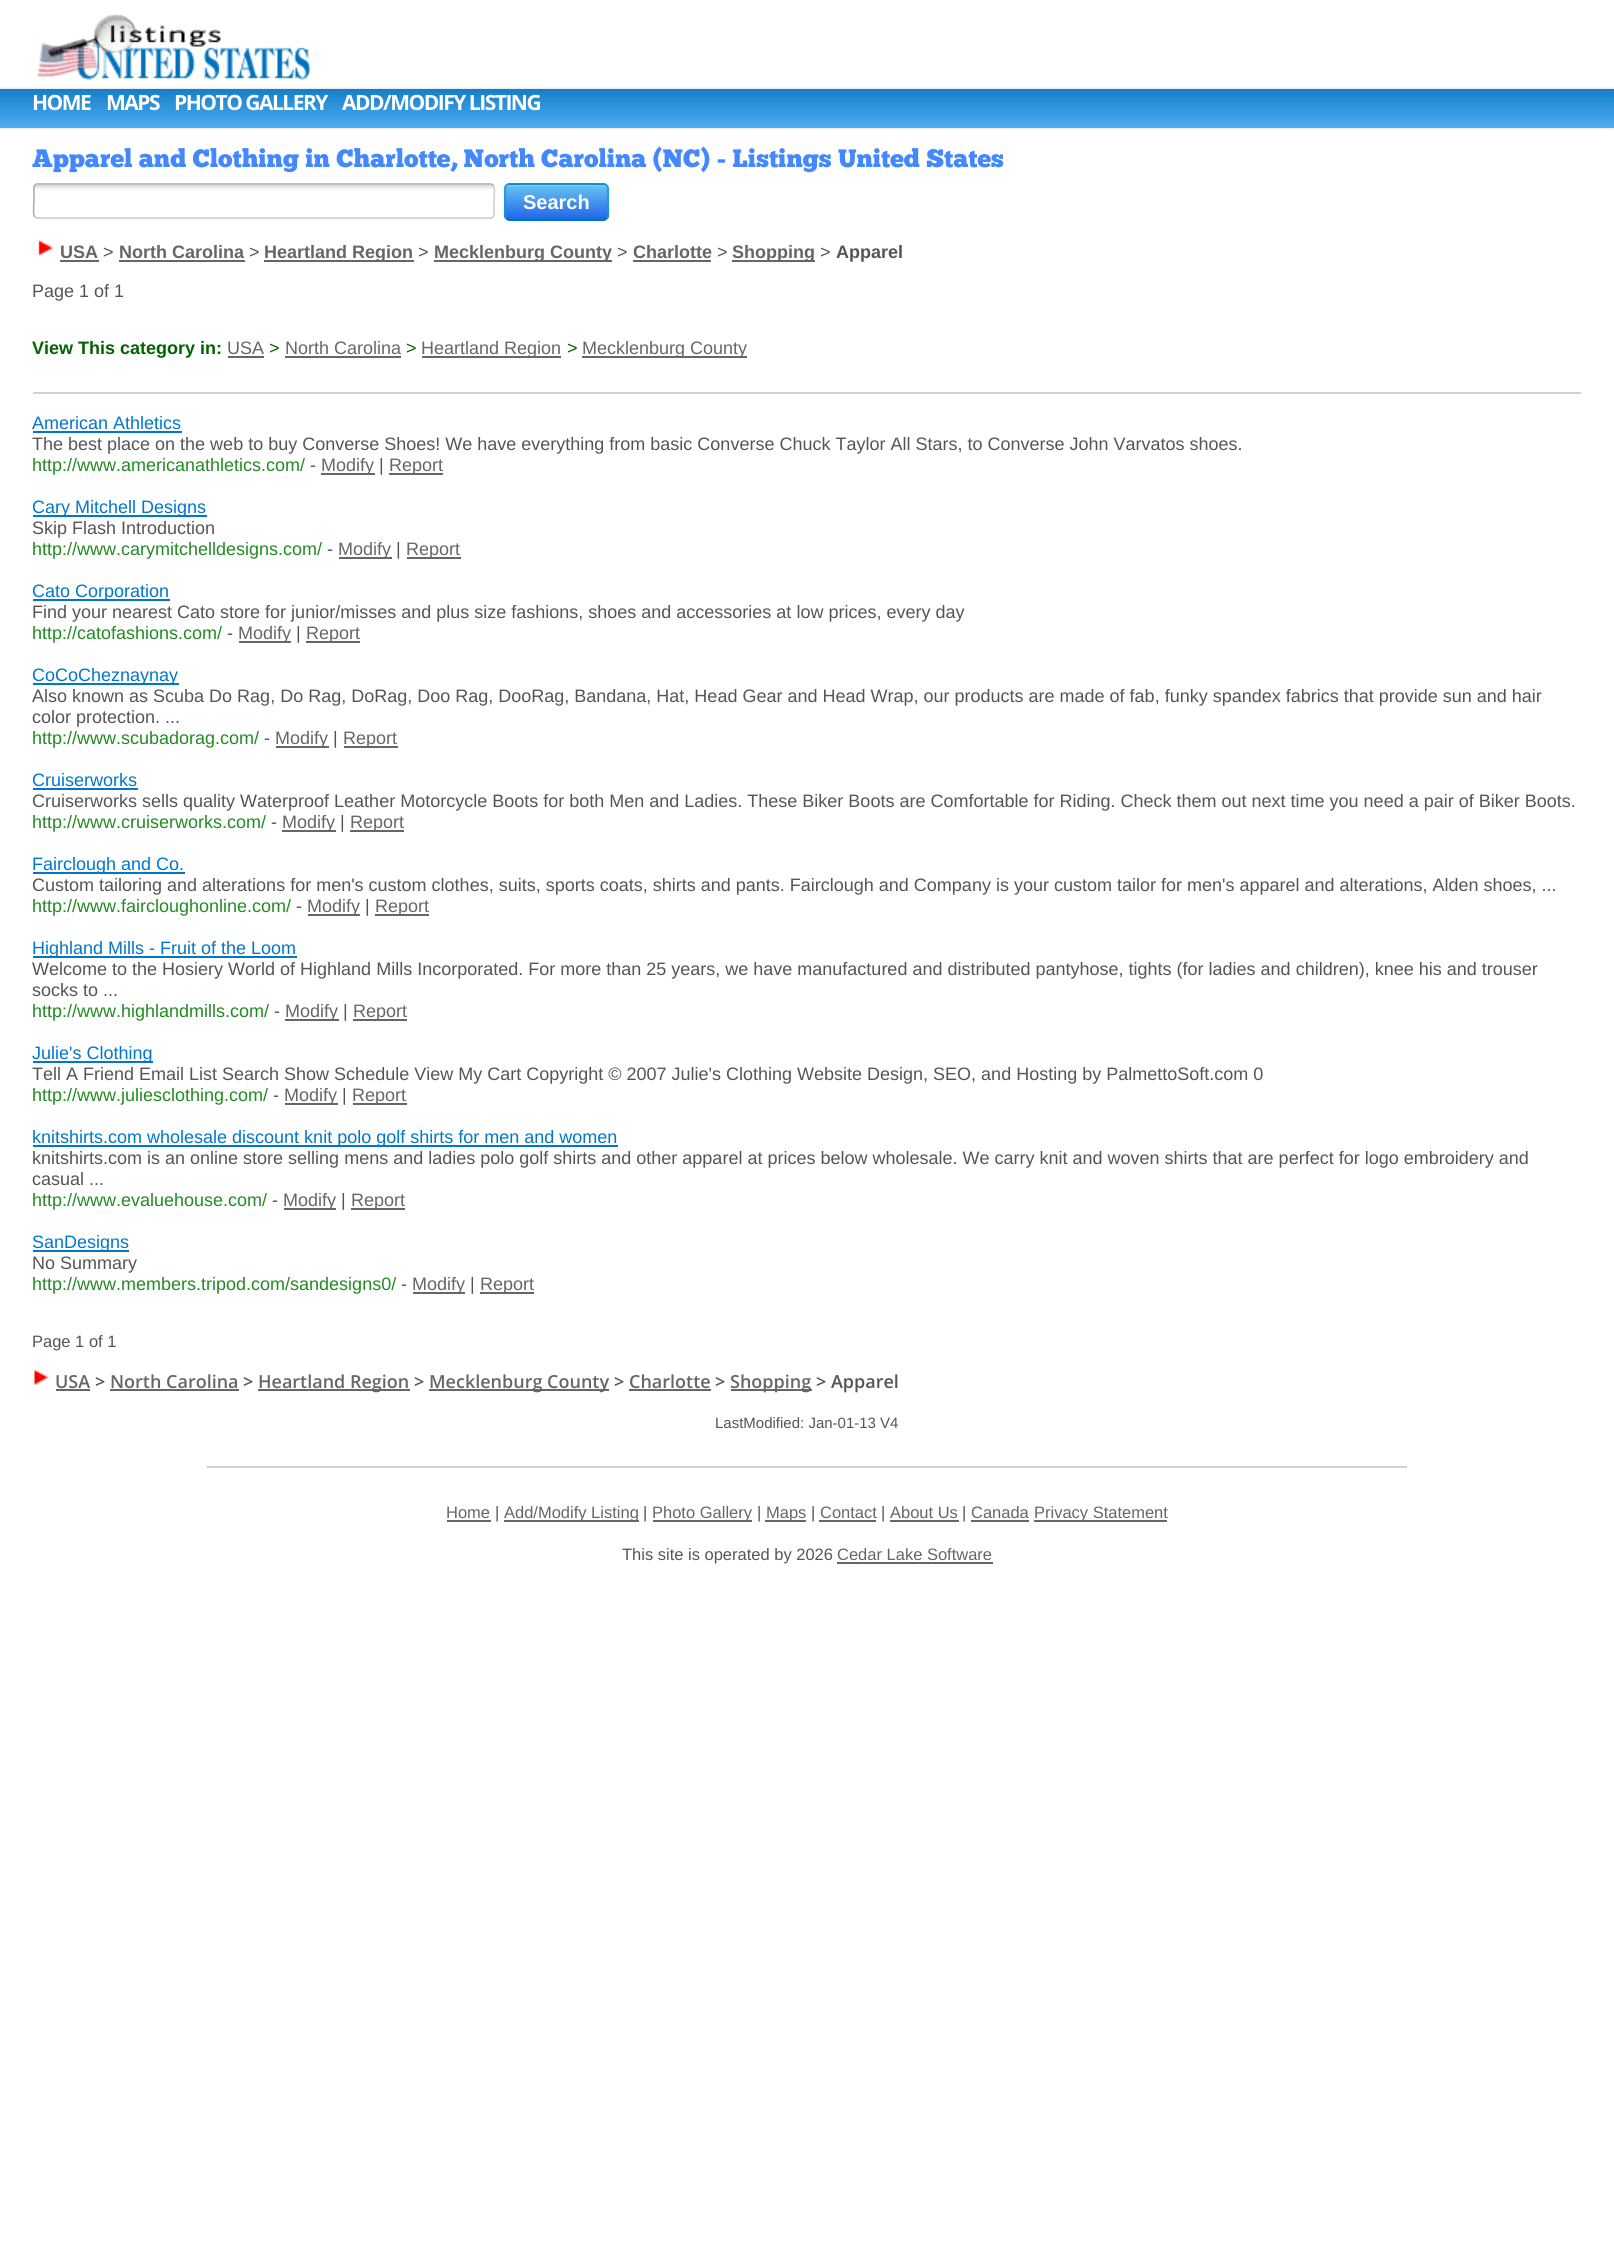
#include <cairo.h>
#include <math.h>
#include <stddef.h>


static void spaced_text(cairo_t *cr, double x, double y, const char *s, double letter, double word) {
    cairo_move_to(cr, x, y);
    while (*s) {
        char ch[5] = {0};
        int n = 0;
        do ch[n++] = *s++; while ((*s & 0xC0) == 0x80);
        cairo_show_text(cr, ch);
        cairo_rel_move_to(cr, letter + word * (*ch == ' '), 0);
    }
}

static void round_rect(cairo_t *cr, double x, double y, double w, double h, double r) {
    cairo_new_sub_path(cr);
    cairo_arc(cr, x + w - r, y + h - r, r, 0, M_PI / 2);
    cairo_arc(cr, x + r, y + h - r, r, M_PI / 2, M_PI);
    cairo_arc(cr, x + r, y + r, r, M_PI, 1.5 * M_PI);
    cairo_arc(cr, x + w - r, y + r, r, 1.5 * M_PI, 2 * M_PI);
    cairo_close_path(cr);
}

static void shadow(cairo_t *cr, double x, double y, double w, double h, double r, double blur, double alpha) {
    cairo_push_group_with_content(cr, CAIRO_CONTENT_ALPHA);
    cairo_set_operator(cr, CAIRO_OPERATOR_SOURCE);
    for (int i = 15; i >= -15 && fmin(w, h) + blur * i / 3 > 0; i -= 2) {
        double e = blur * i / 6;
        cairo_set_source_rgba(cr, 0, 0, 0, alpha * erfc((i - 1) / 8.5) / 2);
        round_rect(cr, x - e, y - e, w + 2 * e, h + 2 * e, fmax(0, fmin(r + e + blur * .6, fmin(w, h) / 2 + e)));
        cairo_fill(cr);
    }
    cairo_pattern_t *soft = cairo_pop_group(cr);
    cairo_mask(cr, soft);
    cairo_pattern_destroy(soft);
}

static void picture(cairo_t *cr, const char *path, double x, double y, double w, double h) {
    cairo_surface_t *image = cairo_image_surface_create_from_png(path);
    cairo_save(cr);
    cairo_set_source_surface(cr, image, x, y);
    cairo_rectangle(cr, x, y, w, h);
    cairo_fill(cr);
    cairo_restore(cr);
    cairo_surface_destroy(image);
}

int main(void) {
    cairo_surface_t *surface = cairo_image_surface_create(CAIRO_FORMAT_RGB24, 1614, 2264);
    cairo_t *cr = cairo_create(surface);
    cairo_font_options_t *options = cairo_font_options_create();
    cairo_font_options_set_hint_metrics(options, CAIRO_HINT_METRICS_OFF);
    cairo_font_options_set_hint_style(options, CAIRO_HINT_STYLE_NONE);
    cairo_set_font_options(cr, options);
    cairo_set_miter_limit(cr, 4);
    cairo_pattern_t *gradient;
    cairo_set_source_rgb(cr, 1, 1, 1);
    cairo_paint(cr);
    picture(cr, "img1.png", 37, 13, 274, 67);
    cairo_set_source_rgb(cr, 0, 0, 0);
    shadow(cr, 0, 89, 1614, 39, 0, 1.5, 0.2);
    gradient = cairo_pattern_create_linear(807, 88, 807, 128);
    cairo_pattern_add_color_stop_rgba(gradient, 0, 0.078, 0.49, 0.784, 1);
    cairo_pattern_add_color_stop_rgba(gradient, 1, 0.298, 0.678, 0.949, 1);
    cairo_set_source(cr, gradient);
    cairo_pattern_destroy(gradient);
    cairo_rectangle(cr, 0, 89, 1614, 39);
    cairo_fill(cr);
    cairo_select_font_face(cr, "Open Sans", CAIRO_FONT_SLANT_NORMAL, CAIRO_FONT_WEIGHT_BOLD);
    cairo_set_font_size(cr, 21);
    cairo_set_source_rgb(cr, 1, 1, 1);
    spaced_text(cr, 32, 110, "HOME", -1.5, 0);
    spaced_text(cr, 106, 110, "MAPS", -1.5, 0);
    spaced_text(cr, 174, 110, "PHOTO GALLERY", -1.5, 0);
    spaced_text(cr, 342, 110, "ADD/MODIFY LISTING", -1.5, 0);
    cairo_select_font_face(cr, "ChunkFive", CAIRO_FONT_SLANT_NORMAL, CAIRO_FONT_WEIGHT_NORMAL);
    cairo_set_font_size(cr, 25.2);
    cairo_set_source_rgb(cr, 0.267, 0.533, 1);
    cairo_move_to(cr, 32, 167);
    cairo_show_text(cr, "Apparel and Clothing in Charlotte, North Carolina (NC) - Listings United States");
    cairo_save(cr);
    round_rect(cr, 33, 183, 462, 36, 5);
    cairo_clip(cr);
    gradient = cairo_pattern_create_linear(264, 184, 264, 218);
    cairo_pattern_add_color_stop_rgba(gradient, 0, 0.82, 0.82, 0.82, 1);
    cairo_pattern_add_color_stop_rgba(gradient, 0.18, 1, 1, 1, 1);
    cairo_pattern_add_color_stop_rgba(gradient, 1, 1, 1, 1, 1);
    cairo_set_source(cr, gradient);
    cairo_pattern_destroy(gradient);
    cairo_rectangle(cr, 33, 185, 462, 33);
    cairo_fill(cr);
    gradient = cairo_pattern_create_linear(264, 217, 264, 251);
    cairo_pattern_add_color_stop_rgba(gradient, 0, 0.82, 0.82, 0.82, 1);
    cairo_pattern_add_color_stop_rgba(gradient, 0.18, 1, 1, 1, 1);
    cairo_pattern_add_color_stop_rgba(gradient, 1, 1, 1, 1, 1);
    cairo_set_source(cr, gradient);
    cairo_pattern_destroy(gradient);
    cairo_rectangle(cr, 33, 218, 462, 1);
    cairo_fill(cr);
    cairo_restore(cr);
    cairo_new_path(cr);
    cairo_move_to(cr, 493, 185);
    cairo_curve_to(cr, 495.5, 187, 494, 198, 494, 201);
    cairo_line_to(cr, 494, 210);
    cairo_curve_to(cr, 494, 212.5, 495, 217, 491.5, 218);
    cairo_line_to(cr, 37, 218);
    cairo_line_to(cr, 35, 217);
    cairo_set_source_rgb(cr, 0.8, 0.8, 0.8);
    cairo_set_line_width(cr, 1.5);
    cairo_stroke(cr);
    cairo_new_path(cr);
    cairo_move_to(cr, 35, 217);
    cairo_curve_to(cr, 32.5, 215, 34, 204, 34, 201);
    cairo_line_to(cr, 34, 192);
    cairo_curve_to(cr, 34, 189.5, 33, 185, 36.5, 184);
    cairo_line_to(cr, 491, 184);
    cairo_line_to(cr, 493, 185);
    cairo_set_source_rgb(cr, 0.667, 0.667, 0.667);
    cairo_stroke(cr);
    cairo_set_source_rgb(cr, 0, 0, 0);
    shadow(cr, 504, 185, 105, 37, 6, 1.5, 0.05);
    cairo_set_source_rgb(cr, 0, 0.427, 0.8);
    round_rect(cr, 504, 183, 105, 38, 6);
    cairo_fill(cr);
    cairo_save(cr);
    round_rect(cr, 504, 183, 105, 38, 6);
    cairo_clip(cr);
    gradient = cairo_pattern_create_linear(557, 185, 557, 219);
    cairo_pattern_add_color_stop_rgba(gradient, 0, 0.404, 0.761, 0.937, 1);
    cairo_pattern_add_color_stop_rgba(gradient, 1, 0.133, 0.404, 0.914, 1);
    cairo_set_source(cr, gradient);
    cairo_pattern_destroy(gradient);
    cairo_rectangle(cr, 504, 185, 105, 34);
    cairo_fill(cr);
    cairo_restore(cr);
    cairo_set_source_rgba(cr, 1, 1, 1, 0.2);
    cairo_new_path(cr);
    cairo_move_to(cr, 510, 186);
    cairo_line_to(cr, 603, 186);
    cairo_curve_to(cr, 605, 186, 608, 188, 608, 190);
    cairo_curve_to(cr, 608, 187, 606, 185, 603, 185);
    cairo_line_to(cr, 511, 185);
    cairo_curve_to(cr, 508, 185, 506, 187, 506, 190);
    cairo_curve_to(cr, 506, 188, 508, 186, 510, 186);
    cairo_close_path(cr);
    cairo_fill(cr);
    cairo_new_path(cr);
    cairo_move_to(cr, 606.5, 218);
    cairo_line_to(cr, 603.5, 219.5);
    cairo_line_to(cr, 509.5, 219.5);
    cairo_line_to(cr, 506.5, 218);
    cairo_set_source_rgb(cr, 0, 0.482, 0.722);
    cairo_stroke(cr);
    cairo_new_path(cr);
    cairo_move_to(cr, 506.5, 218);
    cairo_curve_to(cr, 503.5, 215.5, 505, 205.5, 505, 202);
    cairo_curve_to(cr, 505, 180.5, 503, 184, 525.5, 184);
    cairo_line_to(cr, 587.5, 184);
    cairo_curve_to(cr, 610, 184, 608, 180.5, 608, 202);
    cairo_curve_to(cr, 608, 205.5, 609.5, 215.5, 606.5, 218);
    cairo_set_source_rgb(cr, 0.082, 0.596, 0.851);
    cairo_stroke(cr);
    cairo_select_font_face(cr, "Liberation Sans", CAIRO_FONT_SLANT_NORMAL, CAIRO_FONT_WEIGHT_BOLD);
    cairo_set_font_size(cr, 20);
    cairo_set_source_rgb(cr, 1, 1, 1);
    cairo_move_to(cr, 523, 209);
    cairo_show_text(cr, "Search");
    picture(cr, "img2.png", 38, 240, 15, 16);
    cairo_set_font_size(cr, 18);
    cairo_set_source_rgb(cr, 0.4, 0.4, 0.4);
    cairo_move_to(cr, 60, 258);
    cairo_show_text(cr, "USA");
    cairo_rectangle(cr, 60, 260, 39, 2);
    cairo_fill(cr);
    cairo_select_font_face(cr, "Liberation Sans", CAIRO_FONT_SLANT_NORMAL, CAIRO_FONT_WEIGHT_NORMAL);
    cairo_set_source_rgb(cr, 0.333, 0.333, 0.333);
    cairo_move_to(cr, 103, 258);
    cairo_show_text(cr, ">");
    cairo_select_font_face(cr, "Liberation Sans", CAIRO_FONT_SLANT_NORMAL, CAIRO_FONT_WEIGHT_BOLD);
    cairo_set_source_rgb(cr, 0.4, 0.4, 0.4);
    cairo_move_to(cr, 119, 258);
    cairo_show_text(cr, "North Carolina");
    cairo_rectangle(cr, 119, 260, 126, 2);
    cairo_fill(cr);
    cairo_select_font_face(cr, "Liberation Sans", CAIRO_FONT_SLANT_NORMAL, CAIRO_FONT_WEIGHT_NORMAL);
    cairo_set_source_rgb(cr, 0.333, 0.333, 0.333);
    cairo_move_to(cr, 249, 258);
    cairo_show_text(cr, ">");
    cairo_set_source_rgb(cr, 0.4, 0.4, 0.4);
    cairo_rectangle(cr, 264, 260, 150, 2);
    cairo_fill(cr);
    cairo_select_font_face(cr, "Liberation Sans", CAIRO_FONT_SLANT_NORMAL, CAIRO_FONT_WEIGHT_BOLD);
    cairo_move_to(cr, 264, 258);
    cairo_show_text(cr, "Heartland Region");
    cairo_select_font_face(cr, "Liberation Sans", CAIRO_FONT_SLANT_NORMAL, CAIRO_FONT_WEIGHT_NORMAL);
    cairo_set_source_rgb(cr, 0.333, 0.333, 0.333);
    cairo_move_to(cr, 418, 258);
    cairo_show_text(cr, ">");
    cairo_set_source_rgb(cr, 0.4, 0.4, 0.4);
    cairo_rectangle(cr, 434, 260, 178, 2);
    cairo_fill(cr);
    cairo_select_font_face(cr, "Liberation Sans", CAIRO_FONT_SLANT_NORMAL, CAIRO_FONT_WEIGHT_BOLD);
    cairo_move_to(cr, 434, 258);
    cairo_show_text(cr, "Mecklenburg County");
    cairo_select_font_face(cr, "Liberation Sans", CAIRO_FONT_SLANT_NORMAL, CAIRO_FONT_WEIGHT_NORMAL);
    cairo_set_source_rgb(cr, 0.333, 0.333, 0.333);
    cairo_move_to(cr, 617, 258);
    cairo_show_text(cr, ">");
    cairo_select_font_face(cr, "Liberation Sans", CAIRO_FONT_SLANT_NORMAL, CAIRO_FONT_WEIGHT_BOLD);
    cairo_set_source_rgb(cr, 0.4, 0.4, 0.4);
    cairo_move_to(cr, 633, 258);
    cairo_show_text(cr, "Charlotte");
    cairo_rectangle(cr, 633, 260, 78, 2);
    cairo_fill(cr);
    cairo_select_font_face(cr, "Liberation Sans", CAIRO_FONT_SLANT_NORMAL, CAIRO_FONT_WEIGHT_NORMAL);
    cairo_set_source_rgb(cr, 0.333, 0.333, 0.333);
    cairo_move_to(cr, 717, 258);
    cairo_show_text(cr, ">");
    cairo_set_source_rgb(cr, 0.4, 0.4, 0.4);
    cairo_rectangle(cr, 732, 260, 83, 2);
    cairo_fill(cr);
    cairo_select_font_face(cr, "Liberation Sans", CAIRO_FONT_SLANT_NORMAL, CAIRO_FONT_WEIGHT_BOLD);
    cairo_move_to(cr, 732, 258);
    cairo_show_text(cr, "Shopping");
    cairo_select_font_face(cr, "Liberation Sans", CAIRO_FONT_SLANT_NORMAL, CAIRO_FONT_WEIGHT_NORMAL);
    cairo_set_source_rgb(cr, 0.333, 0.333, 0.333);
    cairo_move_to(cr, 820, 258);
    cairo_show_text(cr, ">");
    cairo_select_font_face(cr, "Liberation Sans", CAIRO_FONT_SLANT_NORMAL, CAIRO_FONT_WEIGHT_BOLD);
    cairo_move_to(cr, 836, 258);
    cairo_show_text(cr, "Apparel");
    cairo_select_font_face(cr, "Liberation Sans", CAIRO_FONT_SLANT_NORMAL, CAIRO_FONT_WEIGHT_NORMAL);
    cairo_move_to(cr, 32, 297);
    cairo_show_text(cr, "Page 1 of 1");
    cairo_select_font_face(cr, "Liberation Sans", CAIRO_FONT_SLANT_NORMAL, CAIRO_FONT_WEIGHT_BOLD);
    cairo_set_source_rgb(cr, 0, 0.392, 0);
    cairo_move_to(cr, 32, 354);
    cairo_show_text(cr, "View This category in:");
    cairo_select_font_face(cr, "Liberation Sans", CAIRO_FONT_SLANT_NORMAL, CAIRO_FONT_WEIGHT_NORMAL);
    cairo_set_source_rgb(cr, 0.4, 0.4, 0.4);
    cairo_move_to(cr, 227, 354);
    cairo_show_text(cr, "USA");
    cairo_rectangle(cr, 228, 356, 36, 2);
    cairo_fill(cr);
    cairo_set_source_rgb(cr, 0, 0.392, 0);
    cairo_move_to(cr, 269, 354);
    cairo_show_text(cr, ">");
    cairo_set_source_rgb(cr, 0.4, 0.4, 0.4);
    cairo_move_to(cr, 285, 354);
    cairo_show_text(cr, "North Carolina");
    cairo_rectangle(cr, 285, 356, 116, 2);
    cairo_fill(cr);
    cairo_set_source_rgb(cr, 0, 0.392, 0);
    cairo_move_to(cr, 406, 354);
    cairo_show_text(cr, ">");
    cairo_set_source_rgb(cr, 0.4, 0.4, 0.4);
    cairo_rectangle(cr, 422, 356, 139, 2);
    cairo_fill(cr);
    cairo_move_to(cr, 421, 354);
    cairo_show_text(cr, "Heartland Region");
    cairo_set_source_rgb(cr, 0, 0.392, 0);
    cairo_move_to(cr, 567, 354);
    cairo_show_text(cr, ">");
    cairo_set_source_rgb(cr, 0.4, 0.4, 0.4);
    cairo_rectangle(cr, 582, 356, 165, 2);
    cairo_fill(cr);
    cairo_move_to(cr, 582, 354);
    cairo_show_text(cr, "Mecklenburg County");
    cairo_set_source_rgb(cr, 0.816, 0.816, 0.816);
    cairo_rectangle(cr, 33, 392, 1548, 2);
    cairo_fill(cr);
    cairo_set_source_rgb(cr, 0, 0.467, 0.8);
    cairo_move_to(cr, 32, 429);
    cairo_show_text(cr, "American Athletics");
    cairo_rectangle(cr, 33, 431, 149, 2);
    cairo_fill(cr);
    cairo_set_source_rgb(cr, 0.333, 0.333, 0.333);
    cairo_move_to(cr, 32, 450);
    cairo_show_text(cr, "The best place on the web to buy Converse Shoes! We have everything from basic Converse Chuck Taylor All Stars, to Converse John Varvatos shoes.");
    cairo_set_source_rgb(cr, 0.133, 0.545, 0.133);
    cairo_move_to(cr, 32, 471);
    cairo_show_text(cr, "http://www.americanathletics.com/");
    cairo_set_source_rgb(cr, 0.333, 0.333, 0.333);
    cairo_move_to(cr, 310, 471);
    cairo_show_text(cr, "-");
    cairo_set_source_rgb(cr, 0.4, 0.4, 0.4);
    cairo_rectangle(cr, 321, 473, 54, 2);
    cairo_fill(cr);
    cairo_move_to(cr, 321, 471);
    cairo_show_text(cr, "Modify");
    cairo_set_source_rgb(cr, 0.333, 0.333, 0.333);
    cairo_move_to(cr, 379, 471);
    cairo_show_text(cr, "|");
    cairo_set_source_rgb(cr, 0.4, 0.4, 0.4);
    cairo_rectangle(cr, 389, 473, 54, 2);
    cairo_fill(cr);
    cairo_move_to(cr, 389, 471);
    cairo_show_text(cr, "Report");
    cairo_set_source_rgb(cr, 0, 0.467, 0.8);
    cairo_rectangle(cr, 33, 515, 174, 2);
    cairo_fill(cr);
    cairo_move_to(cr, 32, 513);
    cairo_show_text(cr, "Cary Mitchell Designs");
    cairo_set_source_rgb(cr, 0.333, 0.333, 0.333);
    cairo_move_to(cr, 32, 534);
    cairo_show_text(cr, "Skip Flash Introduction");
    cairo_set_source_rgb(cr, 0.133, 0.545, 0.133);
    cairo_move_to(cr, 32, 555);
    cairo_show_text(cr, "http://www.carymitchelldesigns.com/");
    cairo_set_source_rgb(cr, 0.333, 0.333, 0.333);
    cairo_move_to(cr, 327, 555);
    cairo_show_text(cr, "-");
    cairo_set_source_rgb(cr, 0.4, 0.4, 0.4);
    cairo_rectangle(cr, 339, 557, 53, 2);
    cairo_fill(cr);
    cairo_move_to(cr, 338, 555);
    cairo_show_text(cr, "Modify");
    cairo_set_source_rgb(cr, 0.333, 0.333, 0.333);
    cairo_move_to(cr, 396, 555);
    cairo_show_text(cr, "|");
    cairo_set_source_rgb(cr, 0.4, 0.4, 0.4);
    cairo_rectangle(cr, 407, 557, 54, 2);
    cairo_fill(cr);
    cairo_move_to(cr, 406, 555);
    cairo_show_text(cr, "Report");
    cairo_set_source_rgb(cr, 0, 0.467, 0.8);
    cairo_rectangle(cr, 33, 599, 137, 2);
    cairo_fill(cr);
    cairo_move_to(cr, 32, 597);
    cairo_show_text(cr, "Cato Corporation");
    cairo_set_source_rgb(cr, 0.333, 0.333, 0.333);
    cairo_move_to(cr, 32, 618);
    cairo_show_text(cr, "Find your nearest Cato store for junior/misses and plus size fashions, shoes and accessories at low prices, every day");
    cairo_set_source_rgb(cr, 0.133, 0.545, 0.133);
    cairo_move_to(cr, 32, 639);
    cairo_show_text(cr, "http://catofashions.com/");
    cairo_set_source_rgb(cr, 0.333, 0.333, 0.333);
    cairo_move_to(cr, 227, 639);
    cairo_show_text(cr, "-");
    cairo_set_source_rgb(cr, 0.4, 0.4, 0.4);
    cairo_rectangle(cr, 239, 641, 52, 2);
    cairo_fill(cr);
    cairo_move_to(cr, 238, 639);
    cairo_show_text(cr, "Modify");
    cairo_set_source_rgb(cr, 0.333, 0.333, 0.333);
    cairo_move_to(cr, 296, 639);
    cairo_show_text(cr, "|");
    cairo_set_source_rgb(cr, 0.4, 0.4, 0.4);
    cairo_rectangle(cr, 306, 641, 54, 2);
    cairo_fill(cr);
    cairo_move_to(cr, 306, 639);
    cairo_show_text(cr, "Report");
    cairo_set_source_rgb(cr, 0, 0.467, 0.8);
    cairo_rectangle(cr, 33, 683, 146, 2);
    cairo_fill(cr);
    cairo_move_to(cr, 32, 681);
    cairo_show_text(cr, "CoCoCheznaynay");
    cairo_set_source_rgb(cr, 0.333, 0.333, 0.333);
    cairo_move_to(cr, 32, 702);
    cairo_show_text(cr, "Also known as Scuba Do Rag, Do Rag, DoRag, Doo Rag, DooRag, Bandana, Hat, Head Gear and Head Wrap, our products are made of fab, funky spandex fabrics that provide sun and hair");
    cairo_move_to(cr, 32, 723);
    cairo_show_text(cr, "color protection. ...");
    cairo_set_source_rgb(cr, 0.133, 0.545, 0.133);
    cairo_move_to(cr, 32, 744);
    cairo_show_text(cr, "http://www.scubadorag.com/");
    cairo_set_source_rgb(cr, 0.333, 0.333, 0.333);
    cairo_move_to(cr, 264, 744);
    cairo_show_text(cr, "-");
    cairo_set_source_rgb(cr, 0.4, 0.4, 0.4);
    cairo_rectangle(cr, 276, 746, 53, 2);
    cairo_fill(cr);
    cairo_move_to(cr, 275, 744);
    cairo_show_text(cr, "Modify");
    cairo_set_source_rgb(cr, 0.333, 0.333, 0.333);
    cairo_move_to(cr, 333, 744);
    cairo_show_text(cr, "|");
    cairo_set_source_rgb(cr, 0.4, 0.4, 0.4);
    cairo_rectangle(cr, 344, 746, 54, 2);
    cairo_fill(cr);
    cairo_move_to(cr, 343, 744);
    cairo_show_text(cr, "Report");
    cairo_set_source_rgb(cr, 0, 0.467, 0.8);
    cairo_move_to(cr, 32, 786);
    cairo_show_text(cr, "Cruiserworks");
    cairo_rectangle(cr, 33, 788, 105, 2);
    cairo_fill(cr);
    cairo_set_source_rgb(cr, 0.333, 0.333, 0.333);
    cairo_move_to(cr, 32, 807);
    cairo_show_text(cr, "Cruiserworks sells quality Waterproof Leather Motorcycle Boots for both Men and Ladies. These Biker Boots are Comfortable for Riding. Check them out next time you need a pair of Biker Boots.");
    cairo_set_source_rgb(cr, 0.133, 0.545, 0.133);
    cairo_move_to(cr, 32, 828);
    cairo_show_text(cr, "http://www.cruiserworks.com/");
    cairo_set_source_rgb(cr, 0.333, 0.333, 0.333);
    cairo_move_to(cr, 271, 828);
    cairo_show_text(cr, "-");
    cairo_set_source_rgb(cr, 0.4, 0.4, 0.4);
    cairo_rectangle(cr, 282, 830, 54, 2);
    cairo_fill(cr);
    cairo_move_to(cr, 282, 828);
    cairo_show_text(cr, "Modify");
    cairo_set_source_rgb(cr, 0.333, 0.333, 0.333);
    cairo_move_to(cr, 340, 828);
    cairo_show_text(cr, "|");
    cairo_set_source_rgb(cr, 0.4, 0.4, 0.4);
    cairo_rectangle(cr, 350, 830, 54, 2);
    cairo_fill(cr);
    cairo_move_to(cr, 350, 828);
    cairo_show_text(cr, "Report");
    cairo_set_source_rgb(cr, 0, 0.467, 0.8);
    cairo_rectangle(cr, 33, 872, 152, 2);
    cairo_fill(cr);
    cairo_move_to(cr, 32, 870);
    cairo_show_text(cr, "Fairclough and Co.");
    cairo_set_source_rgb(cr, 0.333, 0.333, 0.333);
    cairo_move_to(cr, 32, 891);
    cairo_show_text(cr, "Custom tailoring and alterations for men's custom clothes, suits, sports coats, shirts and pants. Fairclough and Company is your custom tailor for men's apparel and alterations, Alden shoes, ...");
    cairo_set_source_rgb(cr, 0.133, 0.545, 0.133);
    cairo_move_to(cr, 32, 912);
    cairo_show_text(cr, "http://www.faircloughonline.com/");
    cairo_set_source_rgb(cr, 0.333, 0.333, 0.333);
    cairo_move_to(cr, 296, 912);
    cairo_show_text(cr, "-");
    cairo_set_source_rgb(cr, 0.4, 0.4, 0.4);
    cairo_rectangle(cr, 308, 914, 52, 2);
    cairo_fill(cr);
    cairo_move_to(cr, 307, 912);
    cairo_show_text(cr, "Modify");
    cairo_set_source_rgb(cr, 0.333, 0.333, 0.333);
    cairo_move_to(cr, 365, 912);
    cairo_show_text(cr, "|");
    cairo_set_source_rgb(cr, 0.4, 0.4, 0.4);
    cairo_rectangle(cr, 375, 914, 54, 2);
    cairo_fill(cr);
    cairo_move_to(cr, 375, 912);
    cairo_show_text(cr, "Report");
    cairo_set_source_rgb(cr, 0, 0.467, 0.8);
    cairo_rectangle(cr, 33, 956, 264, 2);
    cairo_fill(cr);
    cairo_move_to(cr, 32, 954);
    cairo_show_text(cr, "Highland Mills - Fruit of the Loom");
    cairo_set_source_rgb(cr, 0.333, 0.333, 0.333);
    cairo_move_to(cr, 32, 975);
    cairo_show_text(cr, "Welcome to the Hosiery World of Highland Mills Incorporated. For more than 25 years, we have manufactured and distributed pantyhose, tights (for ladies and children), knee his and trouser");
    cairo_move_to(cr, 32, 996);
    cairo_show_text(cr, "socks to ...");
    cairo_set_source_rgb(cr, 0.133, 0.545, 0.133);
    cairo_move_to(cr, 32, 1017);
    cairo_show_text(cr, "http://www.highlandmills.com/");
    cairo_set_source_rgb(cr, 0.333, 0.333, 0.333);
    cairo_move_to(cr, 274, 1017);
    cairo_show_text(cr, "-");
    cairo_set_source_rgb(cr, 0.4, 0.4, 0.4);
    cairo_rectangle(cr, 285, 1019, 54, 2);
    cairo_fill(cr);
    cairo_move_to(cr, 285, 1017);
    cairo_show_text(cr, "Modify");
    cairo_set_source_rgb(cr, 0.333, 0.333, 0.333);
    cairo_move_to(cr, 343, 1017);
    cairo_show_text(cr, "|");
    cairo_set_source_rgb(cr, 0.4, 0.4, 0.4);
    cairo_rectangle(cr, 353, 1019, 54, 2);
    cairo_fill(cr);
    cairo_move_to(cr, 353, 1017);
    cairo_show_text(cr, "Report");
    cairo_set_source_rgb(cr, 0, 0.467, 0.8);
    cairo_rectangle(cr, 33, 1061, 120, 2);
    cairo_fill(cr);
    cairo_move_to(cr, 32, 1059);
    cairo_show_text(cr, "Julie's Clothing");
    cairo_set_source_rgb(cr, 0.333, 0.333, 0.333);
    cairo_move_to(cr, 32, 1080);
    cairo_show_text(cr, "Tell A Friend Email List Search Show Schedule View My Cart Copyright © 2007 Julie's Clothing Website Design, SEO, and Hosting by PalmettoSoft.com 0");
    cairo_set_source_rgb(cr, 0.133, 0.545, 0.133);
    cairo_move_to(cr, 32, 1101);
    cairo_show_text(cr, "http://www.juliesclothing.com/");
    cairo_set_source_rgb(cr, 0.333, 0.333, 0.333);
    cairo_move_to(cr, 273, 1101);
    cairo_show_text(cr, "-");
    cairo_set_source_rgb(cr, 0.4, 0.4, 0.4);
    cairo_rectangle(cr, 285, 1103, 53, 2);
    cairo_fill(cr);
    cairo_move_to(cr, 284, 1101);
    cairo_show_text(cr, "Modify");
    cairo_set_source_rgb(cr, 0.333, 0.333, 0.333);
    cairo_move_to(cr, 342, 1101);
    cairo_show_text(cr, "|");
    cairo_set_source_rgb(cr, 0.4, 0.4, 0.4);
    cairo_rectangle(cr, 353, 1103, 54, 2);
    cairo_fill(cr);
    cairo_move_to(cr, 352, 1101);
    cairo_show_text(cr, "Report");
    cairo_set_source_rgb(cr, 0, 0.467, 0.8);
    cairo_rectangle(cr, 33, 1145, 585, 2);
    cairo_fill(cr);
    cairo_move_to(cr, 32, 1143);
    cairo_show_text(cr, "knitshirts.com wholesale discount knit polo golf shirts for men and women");
    cairo_set_source_rgb(cr, 0.333, 0.333, 0.333);
    cairo_move_to(cr, 32, 1164);
    cairo_show_text(cr, "knitshirts.com is an online store selling mens and ladies polo golf shirts and other apparel at prices below wholesale. We carry knit and woven shirts that are perfect for logo embroidery and");
    cairo_move_to(cr, 32, 1185);
    cairo_show_text(cr, "casual ...");
    cairo_set_source_rgb(cr, 0.133, 0.545, 0.133);
    cairo_move_to(cr, 32, 1206);
    cairo_show_text(cr, "http://www.evaluehouse.com/");
    cairo_set_source_rgb(cr, 0.333, 0.333, 0.333);
    cairo_move_to(cr, 272, 1206);
    cairo_show_text(cr, "-");
    cairo_set_source_rgb(cr, 0.4, 0.4, 0.4);
    cairo_rectangle(cr, 284, 1208, 52, 2);
    cairo_fill(cr);
    cairo_move_to(cr, 283, 1206);
    cairo_show_text(cr, "Modify");
    cairo_set_source_rgb(cr, 0.333, 0.333, 0.333);
    cairo_move_to(cr, 341, 1206);
    cairo_show_text(cr, "|");
    cairo_set_source_rgb(cr, 0.4, 0.4, 0.4);
    cairo_rectangle(cr, 351, 1208, 54, 2);
    cairo_fill(cr);
    cairo_move_to(cr, 351, 1206);
    cairo_show_text(cr, "Report");
    cairo_set_source_rgb(cr, 0, 0.467, 0.8);
    cairo_rectangle(cr, 33, 1250, 96, 2);
    cairo_fill(cr);
    cairo_move_to(cr, 32, 1248);
    cairo_show_text(cr, "SanDesigns");
    cairo_set_source_rgb(cr, 0.333, 0.333, 0.333);
    cairo_move_to(cr, 32, 1269);
    cairo_show_text(cr, "No Summary");
    cairo_set_source_rgb(cr, 0.133, 0.545, 0.133);
    cairo_move_to(cr, 32, 1290);
    cairo_show_text(cr, "http://www.members.tripod.com/sandesigns0/");
    cairo_set_source_rgb(cr, 0.333, 0.333, 0.333);
    cairo_move_to(cr, 401, 1290);
    cairo_show_text(cr, "-");
    cairo_set_source_rgb(cr, 0.4, 0.4, 0.4);
    cairo_rectangle(cr, 413, 1292, 52, 2);
    cairo_fill(cr);
    cairo_move_to(cr, 412, 1290);
    cairo_show_text(cr, "Modify");
    cairo_set_source_rgb(cr, 0.333, 0.333, 0.333);
    cairo_move_to(cr, 470, 1290);
    cairo_show_text(cr, "|");
    cairo_set_source_rgb(cr, 0.4, 0.4, 0.4);
    cairo_rectangle(cr, 480, 1292, 54, 2);
    cairo_fill(cr);
    cairo_move_to(cr, 480, 1290);
    cairo_show_text(cr, "Report");
    cairo_set_font_size(cr, 16.5);
    cairo_set_source_rgb(cr, 0.333, 0.333, 0.333);
    cairo_move_to(cr, 32, 1347);
    cairo_show_text(cr, "Page 1 of 1");
    picture(cr, "img3.png", 34, 1369, 15, 16);
    cairo_select_font_face(cr, "Open Sans SemiBold", CAIRO_FONT_SLANT_NORMAL, CAIRO_FONT_WEIGHT_NORMAL);
    cairo_set_font_size(cr, 18);
    cairo_set_source_rgb(cr, 0.4, 0.4, 0.4);
    cairo_move_to(cr, 55, 1388);
    cairo_show_text(cr, "USA");
    cairo_rectangle(cr, 56, 1389, 34, 2);
    cairo_fill(cr);
    cairo_set_source_rgb(cr, 0.333, 0.333, 0.333);
    cairo_move_to(cr, 95, 1388);
    cairo_show_text(cr, ">");
    cairo_set_source_rgb(cr, 0.4, 0.4, 0.4);
    cairo_move_to(cr, 110, 1388);
    cairo_show_text(cr, "North Carolina");
    cairo_rectangle(cr, 110, 1389, 129, 2);
    cairo_fill(cr);
    cairo_set_source_rgb(cr, 0.333, 0.333, 0.333);
    cairo_move_to(cr, 243, 1388);
    cairo_show_text(cr, ">");
    cairo_set_source_rgb(cr, 0.4, 0.4, 0.4);
    cairo_rectangle(cr, 258, 1389, 152, 2);
    cairo_fill(cr);
    cairo_move_to(cr, 258, 1388);
    cairo_show_text(cr, "Heartland Region");
    cairo_set_source_rgb(cr, 0.333, 0.333, 0.333);
    cairo_move_to(cr, 414, 1388);
    cairo_show_text(cr, ">");
    cairo_set_source_rgb(cr, 0.4, 0.4, 0.4);
    cairo_rectangle(cr, 429, 1389, 180, 2);
    cairo_fill(cr);
    cairo_move_to(cr, 429, 1388);
    cairo_show_text(cr, "Mecklenburg County");
    cairo_set_source_rgb(cr, 0.333, 0.333, 0.333);
    cairo_move_to(cr, 614, 1388);
    cairo_show_text(cr, ">");
    cairo_set_source_rgb(cr, 0.4, 0.4, 0.4);
    cairo_move_to(cr, 629, 1388);
    cairo_show_text(cr, "Charlotte");
    cairo_rectangle(cr, 629, 1389, 82, 2);
    cairo_fill(cr);
    cairo_set_source_rgb(cr, 0.333, 0.333, 0.333);
    cairo_move_to(cr, 715, 1388);
    cairo_show_text(cr, ">");
    cairo_set_source_rgb(cr, 0.4, 0.4, 0.4);
    cairo_rectangle(cr, 731, 1389, 81, 2);
    cairo_fill(cr);
    cairo_move_to(cr, 730, 1388);
    cairo_show_text(cr, "Shopping");
    cairo_set_source_rgb(cr, 0.333, 0.333, 0.333);
    cairo_move_to(cr, 816, 1388);
    cairo_show_text(cr, "> Apparel");
    cairo_select_font_face(cr, "Liberation Sans", CAIRO_FONT_SLANT_NORMAL, CAIRO_FONT_WEIGHT_NORMAL);
    cairo_set_font_size(cr, 15);
    cairo_move_to(cr, 715, 1428);
    cairo_show_text(cr, "LastModified: Jan-01-13 V4");
    cairo_set_source_rgb(cr, 0.816, 0.816, 0.816);
    cairo_rectangle(cr, 207, 1466, 1200, 2);
    cairo_fill(cr);
    cairo_set_font_size(cr, 16.5);
    cairo_set_source_rgb(cr, 0.4, 0.4, 0.4);
    cairo_move_to(cr, 446, 1518);
    cairo_show_text(cr, "Home");
    cairo_rectangle(cr, 447, 1520, 44, 2);
    cairo_fill(cr);
    cairo_set_source_rgb(cr, 0.333, 0.333, 0.333);
    cairo_move_to(cr, 495, 1518);
    cairo_show_text(cr, "|");
    cairo_set_source_rgb(cr, 0.4, 0.4, 0.4);
    cairo_rectangle(cr, 504, 1520, 135, 2);
    cairo_fill(cr);
    cairo_move_to(cr, 504, 1518);
    cairo_show_text(cr, "Add/Modify Listing");
    cairo_set_source_rgb(cr, 0.333, 0.333, 0.333);
    cairo_move_to(cr, 643, 1518);
    cairo_show_text(cr, "|");
    cairo_set_source_rgb(cr, 0.4, 0.4, 0.4);
    cairo_rectangle(cr, 653, 1520, 99, 2);
    cairo_fill(cr);
    cairo_move_to(cr, 652, 1518);
    cairo_show_text(cr, "Photo Gallery");
    cairo_set_source_rgb(cr, 0.333, 0.333, 0.333);
    cairo_move_to(cr, 757, 1518);
    cairo_show_text(cr, "|");
    cairo_set_source_rgb(cr, 0.4, 0.4, 0.4);
    cairo_rectangle(cr, 765, 1520, 41, 2);
    cairo_fill(cr);
    cairo_move_to(cr, 766, 1518);
    cairo_show_text(cr, "Maps");
    cairo_set_source_rgb(cr, 0.333, 0.333, 0.333);
    cairo_move_to(cr, 811, 1518);
    cairo_show_text(cr, "|");
    cairo_set_source_rgb(cr, 0.4, 0.4, 0.4);
    cairo_move_to(cr, 820, 1518);
    cairo_show_text(cr, "Contact");
    cairo_rectangle(cr, 819, 1520, 57, 2);
    cairo_fill(cr);
    cairo_set_source_rgb(cr, 0.333, 0.333, 0.333);
    cairo_move_to(cr, 881, 1518);
    cairo_show_text(cr, "|");
    cairo_set_source_rgb(cr, 0.4, 0.4, 0.4);
    cairo_move_to(cr, 890, 1518);
    cairo_show_text(cr, "About Us");
    cairo_rectangle(cr, 890, 1520, 69, 2);
    cairo_fill(cr);
    cairo_set_source_rgb(cr, 0.333, 0.333, 0.333);
    cairo_move_to(cr, 962, 1518);
    cairo_show_text(cr, "|");
    cairo_set_source_rgb(cr, 0.4, 0.4, 0.4);
    cairo_move_to(cr, 971, 1518);
    cairo_show_text(cr, "Canada");
    cairo_rectangle(cr, 971, 1520, 58, 2);
    cairo_fill(cr);
    cairo_rectangle(cr, 1034, 1520, 133, 2);
    cairo_fill(cr);
    cairo_move_to(cr, 1034, 1518);
    cairo_show_text(cr, "Privacy Statement");
    cairo_set_source_rgb(cr, 0.333, 0.333, 0.333);
    cairo_move_to(cr, 622, 1560);
    cairo_show_text(cr, "This site is operated by 2026");
    cairo_set_source_rgb(cr, 0.4, 0.4, 0.4);
    cairo_move_to(cr, 837, 1560);
    cairo_show_text(cr, "Cedar Lake Software");
    cairo_rectangle(cr, 837, 1562, 156, 2);
    cairo_fill(cr);
    cairo_surface_write_to_png(surface, "page.png");
    cairo_font_options_destroy(options);
    cairo_destroy(cr);
    cairo_surface_destroy(surface);
    return 0;
}
